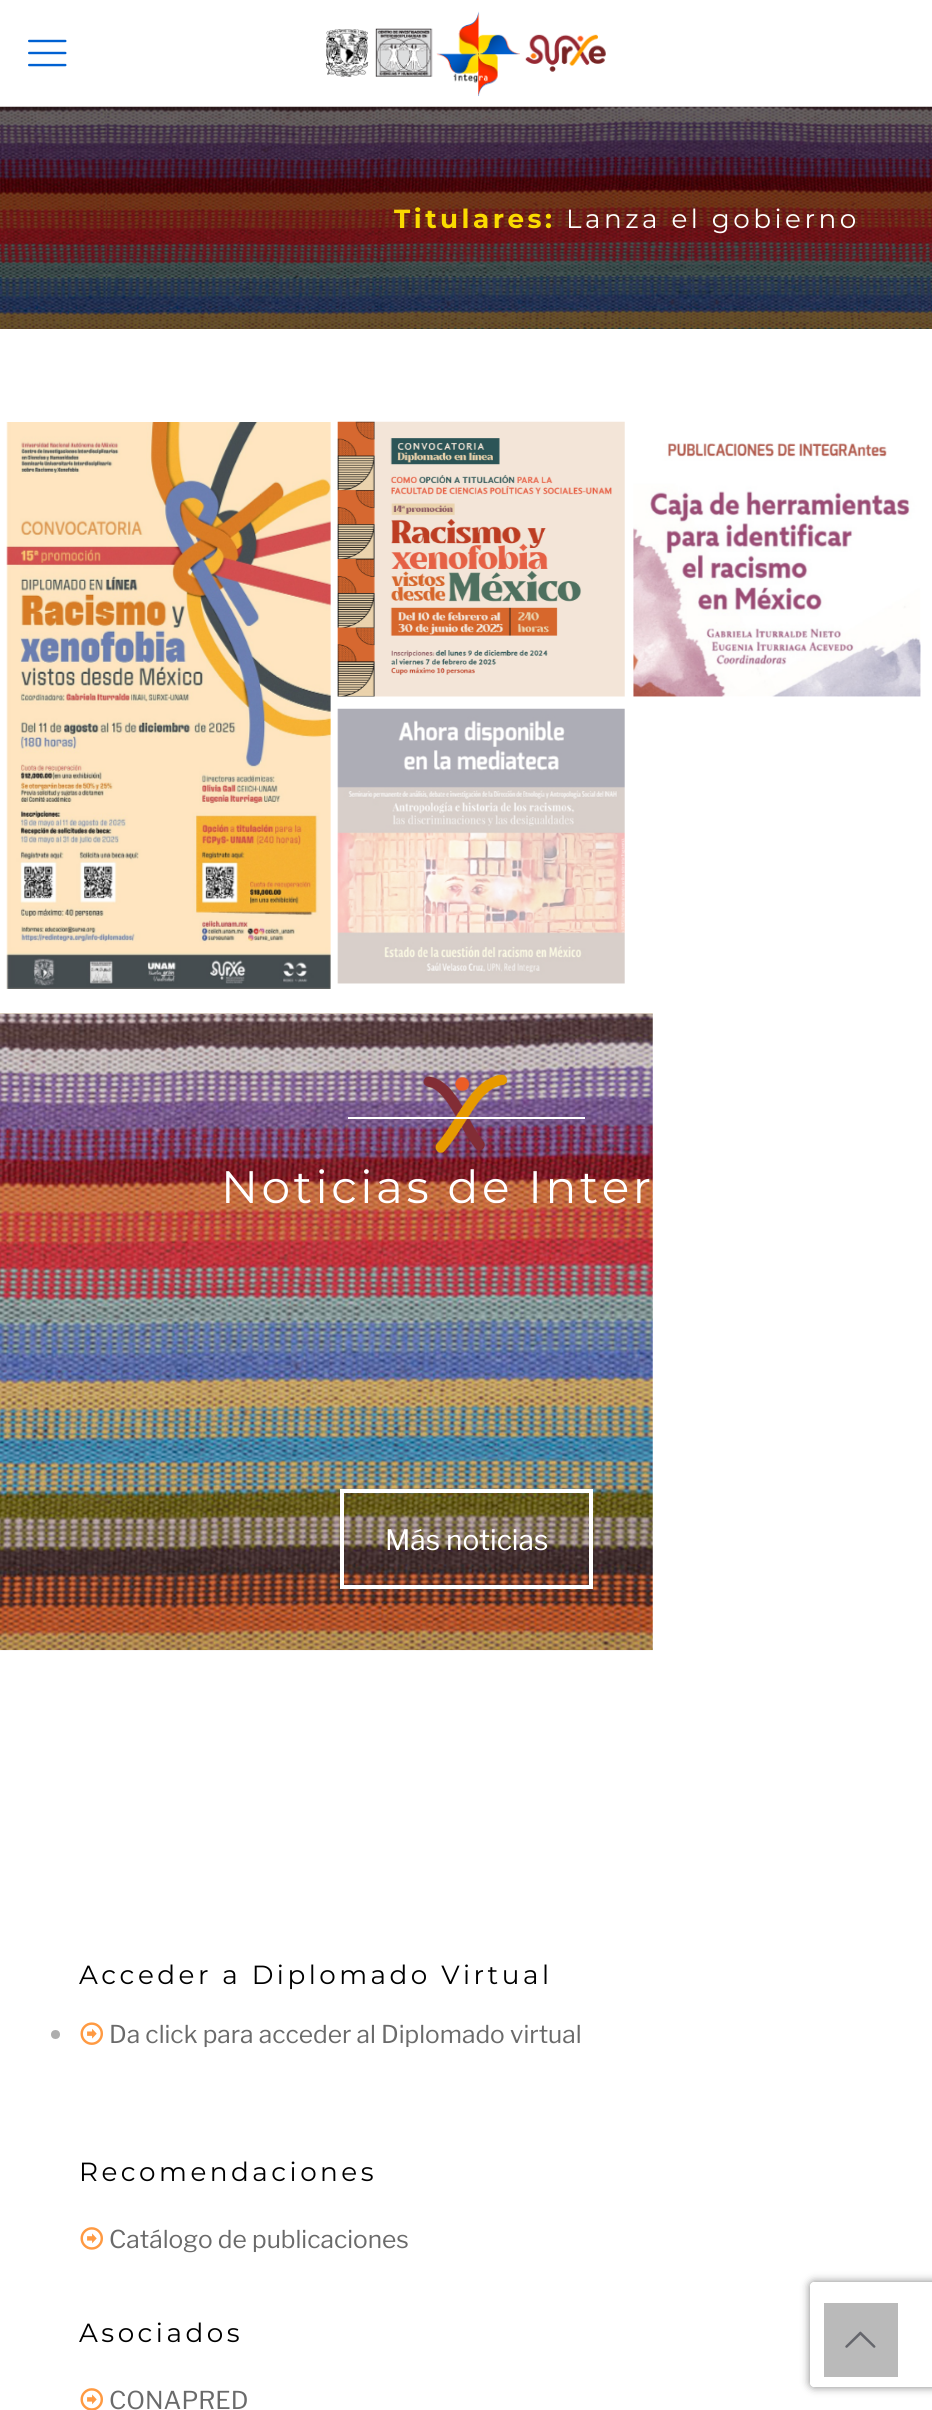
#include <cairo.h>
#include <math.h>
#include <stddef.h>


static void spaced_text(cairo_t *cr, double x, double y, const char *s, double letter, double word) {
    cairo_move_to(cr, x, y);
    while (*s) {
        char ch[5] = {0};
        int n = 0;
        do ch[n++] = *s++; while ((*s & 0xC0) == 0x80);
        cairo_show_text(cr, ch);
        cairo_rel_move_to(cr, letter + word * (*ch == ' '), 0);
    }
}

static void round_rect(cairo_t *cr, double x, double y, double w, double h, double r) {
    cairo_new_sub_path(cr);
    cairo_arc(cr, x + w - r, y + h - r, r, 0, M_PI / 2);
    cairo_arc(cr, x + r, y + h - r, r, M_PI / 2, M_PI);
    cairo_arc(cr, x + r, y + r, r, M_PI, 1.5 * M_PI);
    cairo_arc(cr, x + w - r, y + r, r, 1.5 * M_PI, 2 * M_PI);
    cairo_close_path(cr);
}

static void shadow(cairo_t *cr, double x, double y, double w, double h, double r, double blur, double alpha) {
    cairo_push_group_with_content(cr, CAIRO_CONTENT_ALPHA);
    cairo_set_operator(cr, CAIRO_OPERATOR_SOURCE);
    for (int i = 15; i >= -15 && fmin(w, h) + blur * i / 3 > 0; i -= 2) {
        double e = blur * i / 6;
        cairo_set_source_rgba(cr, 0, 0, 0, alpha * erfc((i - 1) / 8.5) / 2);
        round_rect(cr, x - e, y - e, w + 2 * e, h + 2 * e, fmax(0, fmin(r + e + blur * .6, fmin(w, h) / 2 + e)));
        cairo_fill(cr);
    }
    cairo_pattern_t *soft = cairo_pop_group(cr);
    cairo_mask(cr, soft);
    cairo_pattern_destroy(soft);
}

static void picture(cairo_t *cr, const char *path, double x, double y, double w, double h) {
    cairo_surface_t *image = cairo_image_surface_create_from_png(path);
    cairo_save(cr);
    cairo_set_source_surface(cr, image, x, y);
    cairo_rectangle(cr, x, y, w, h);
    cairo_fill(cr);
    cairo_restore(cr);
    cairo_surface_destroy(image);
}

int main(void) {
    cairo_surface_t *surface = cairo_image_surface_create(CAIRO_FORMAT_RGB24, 932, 2410);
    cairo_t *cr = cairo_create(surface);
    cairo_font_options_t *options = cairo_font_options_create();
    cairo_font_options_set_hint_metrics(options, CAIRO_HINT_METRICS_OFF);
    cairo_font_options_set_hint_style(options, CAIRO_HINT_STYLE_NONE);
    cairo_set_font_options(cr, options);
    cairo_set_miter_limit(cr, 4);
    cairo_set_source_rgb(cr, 1, 1, 1);
    cairo_paint(cr);
    picture(cr, "img1.png", 28, 39, 39, 28);
    picture(cr, "img2.png", 325, 11, 281, 86);
    picture(cr, "img3.png", 0, 106, 932, 223);
    cairo_select_font_face(cr, "Montserrat", CAIRO_FONT_SLANT_NORMAL, CAIRO_FONT_WEIGHT_BOLD);
    cairo_set_font_size(cr, 26.25);
    cairo_set_source_rgb(cr, 0.98, 0.855, 0);
    spaced_text(cr, 394, 228, "Titulares:", 3.5, 0);
    cairo_select_font_face(cr, "Montserrat", CAIRO_FONT_SLANT_NORMAL, CAIRO_FONT_WEIGHT_NORMAL);
    cairo_set_source_rgb(cr, 1, 1, 1);
    spaced_text(cr, 566, 228, "Lanza el gobierno", 3.5, 0);
    picture(cr, "img4.png", 6, 422, 325, 567);
    picture(cr, "img5.png", 337, 421, 288, 276);
    picture(cr, "img6.png", 633, 443, 288, 254);
    picture(cr, "img7.png", 337, 708, 288, 276);
    picture(cr, "img8.png", 0, 1013, 653, 638);
    cairo_set_source_rgba(cr, 1, 1, 1, 0.25);
    cairo_rectangle(cr, 0, 1013, 653, 1);
    cairo_fill(cr);
    picture(cr, "img9.png", 423, 1074, 85, 80);
    cairo_set_source_rgb(cr, 1, 1, 1);
    cairo_rectangle(cr, 348, 1117, 237, 2);
    cairo_fill(cr);
    cairo_set_font_size(cr, 45.5);
    spaced_text(cr, 221, 1203, "Noticias de Inter", 3.5, 0);
    cairo_rectangle(cr, 342, 1491, 249, 96);
    cairo_set_line_width(cr, 4);
    cairo_stroke(cr);
    cairo_select_font_face(cr, "Libre Franklin", CAIRO_FONT_SLANT_NORMAL, CAIRO_FONT_WEIGHT_NORMAL);
    cairo_set_font_size(cr, 28);
    cairo_move_to(cr, 385, 1550);
    cairo_show_text(cr, "Más noticias");
    cairo_select_font_face(cr, "Montserrat", CAIRO_FONT_SLANT_NORMAL, CAIRO_FONT_WEIGHT_NORMAL);
    cairo_set_font_size(cr, 26.25);
    cairo_set_source_rgb(cr, 0, 0, 0);
    spaced_text(cr, 79, 1984, "Acceder a Diplomado Virtual", 3.5, 0);
    cairo_set_source_rgb(cr, 0.682, 0.682, 0.682);
    cairo_new_path(cr);
    cairo_arc(cr, 55.5, 2034.5, 4.5, 0, 2 * M_PI);
    cairo_fill(cr);
    picture(cr, "img10.png", 80, 2022, 23, 23);
    cairo_select_font_face(cr, "Libre Franklin", CAIRO_FONT_SLANT_NORMAL, CAIRO_FONT_WEIGHT_NORMAL);
    cairo_set_font_size(cr, 24.5);
    cairo_set_source_rgb(cr, 0.416, 0.416, 0.416);
    cairo_move_to(cr, 109, 2043);
    cairo_show_text(cr, "Da click para acceder al Diplomado virtual");
    cairo_select_font_face(cr, "Montserrat", CAIRO_FONT_SLANT_NORMAL, CAIRO_FONT_WEIGHT_NORMAL);
    cairo_set_font_size(cr, 26.25);
    cairo_set_source_rgb(cr, 0, 0, 0);
    spaced_text(cr, 79, 2181, "Recomendaciones", 3.5, 0);
    picture(cr, "img11.png", 80, 2227, 23, 23);
    cairo_select_font_face(cr, "Libre Franklin", CAIRO_FONT_SLANT_NORMAL, CAIRO_FONT_WEIGHT_NORMAL);
    cairo_set_font_size(cr, 24.5);
    cairo_set_source_rgb(cr, 0.416, 0.416, 0.416);
    cairo_move_to(cr, 109, 2248);
    cairo_show_text(cr, "Catálogo de publicaciones");
    cairo_select_font_face(cr, "Montserrat", CAIRO_FONT_SLANT_NORMAL, CAIRO_FONT_WEIGHT_NORMAL);
    cairo_set_font_size(cr, 26.25);
    cairo_set_source_rgb(cr, 0, 0, 0);
    spaced_text(cr, 79, 2342, "Asociados", 3.5, 0);
    picture(cr, "img12.png", 80, 2388, 23, 22);
    cairo_select_font_face(cr, "Libre Franklin", CAIRO_FONT_SLANT_NORMAL, CAIRO_FONT_WEIGHT_NORMAL);
    cairo_set_font_size(cr, 24.5);
    cairo_set_source_rgb(cr, 0.416, 0.416, 0.416);
    cairo_move_to(cr, 109, 2409);
    cairo_show_text(cr, "CONAPRED");
    cairo_save(cr);
    cairo_set_fill_rule(cr, CAIRO_FILL_RULE_EVEN_ODD);
    cairo_new_path(cr);
    cairo_move_to(cr, 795, 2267);
    cairo_line_to(cr, 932, 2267);
    cairo_line_to(cr, 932, 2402);
    cairo_line_to(cr, 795, 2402);
    cairo_close_path(cr);
    cairo_move_to(cr, 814, 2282);
    cairo_line_to(cr, 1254, 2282);
    cairo_curve_to(cr, 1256, 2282, 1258, 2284, 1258, 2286);
    cairo_line_to(cr, 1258, 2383);
    cairo_curve_to(cr, 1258, 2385, 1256, 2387, 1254, 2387);
    cairo_line_to(cr, 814, 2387);
    cairo_curve_to(cr, 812, 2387, 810, 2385, 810, 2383);
    cairo_line_to(cr, 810, 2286);
    cairo_curve_to(cr, 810, 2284, 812, 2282, 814, 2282);
    cairo_close_path(cr);
    cairo_clip(cr);
    cairo_set_source_rgb(cr, 0.502, 0.502, 0.502);
    shadow(cr, 810, 2282, 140, 105, 4, 4.5, 1);
    cairo_restore(cr);
    cairo_set_source_rgb(cr, 0.729, 0.729, 0.729);
    cairo_rectangle(cr, 824, 2303, 74, 74);
    cairo_fill(cr);
    picture(cr, "img13.png", 845, 2331, 31, 17);
    cairo_surface_write_to_png(surface, "page.png");
    cairo_font_options_destroy(options);
    cairo_destroy(cr);
    cairo_surface_destroy(surface);
    return 0;
}
